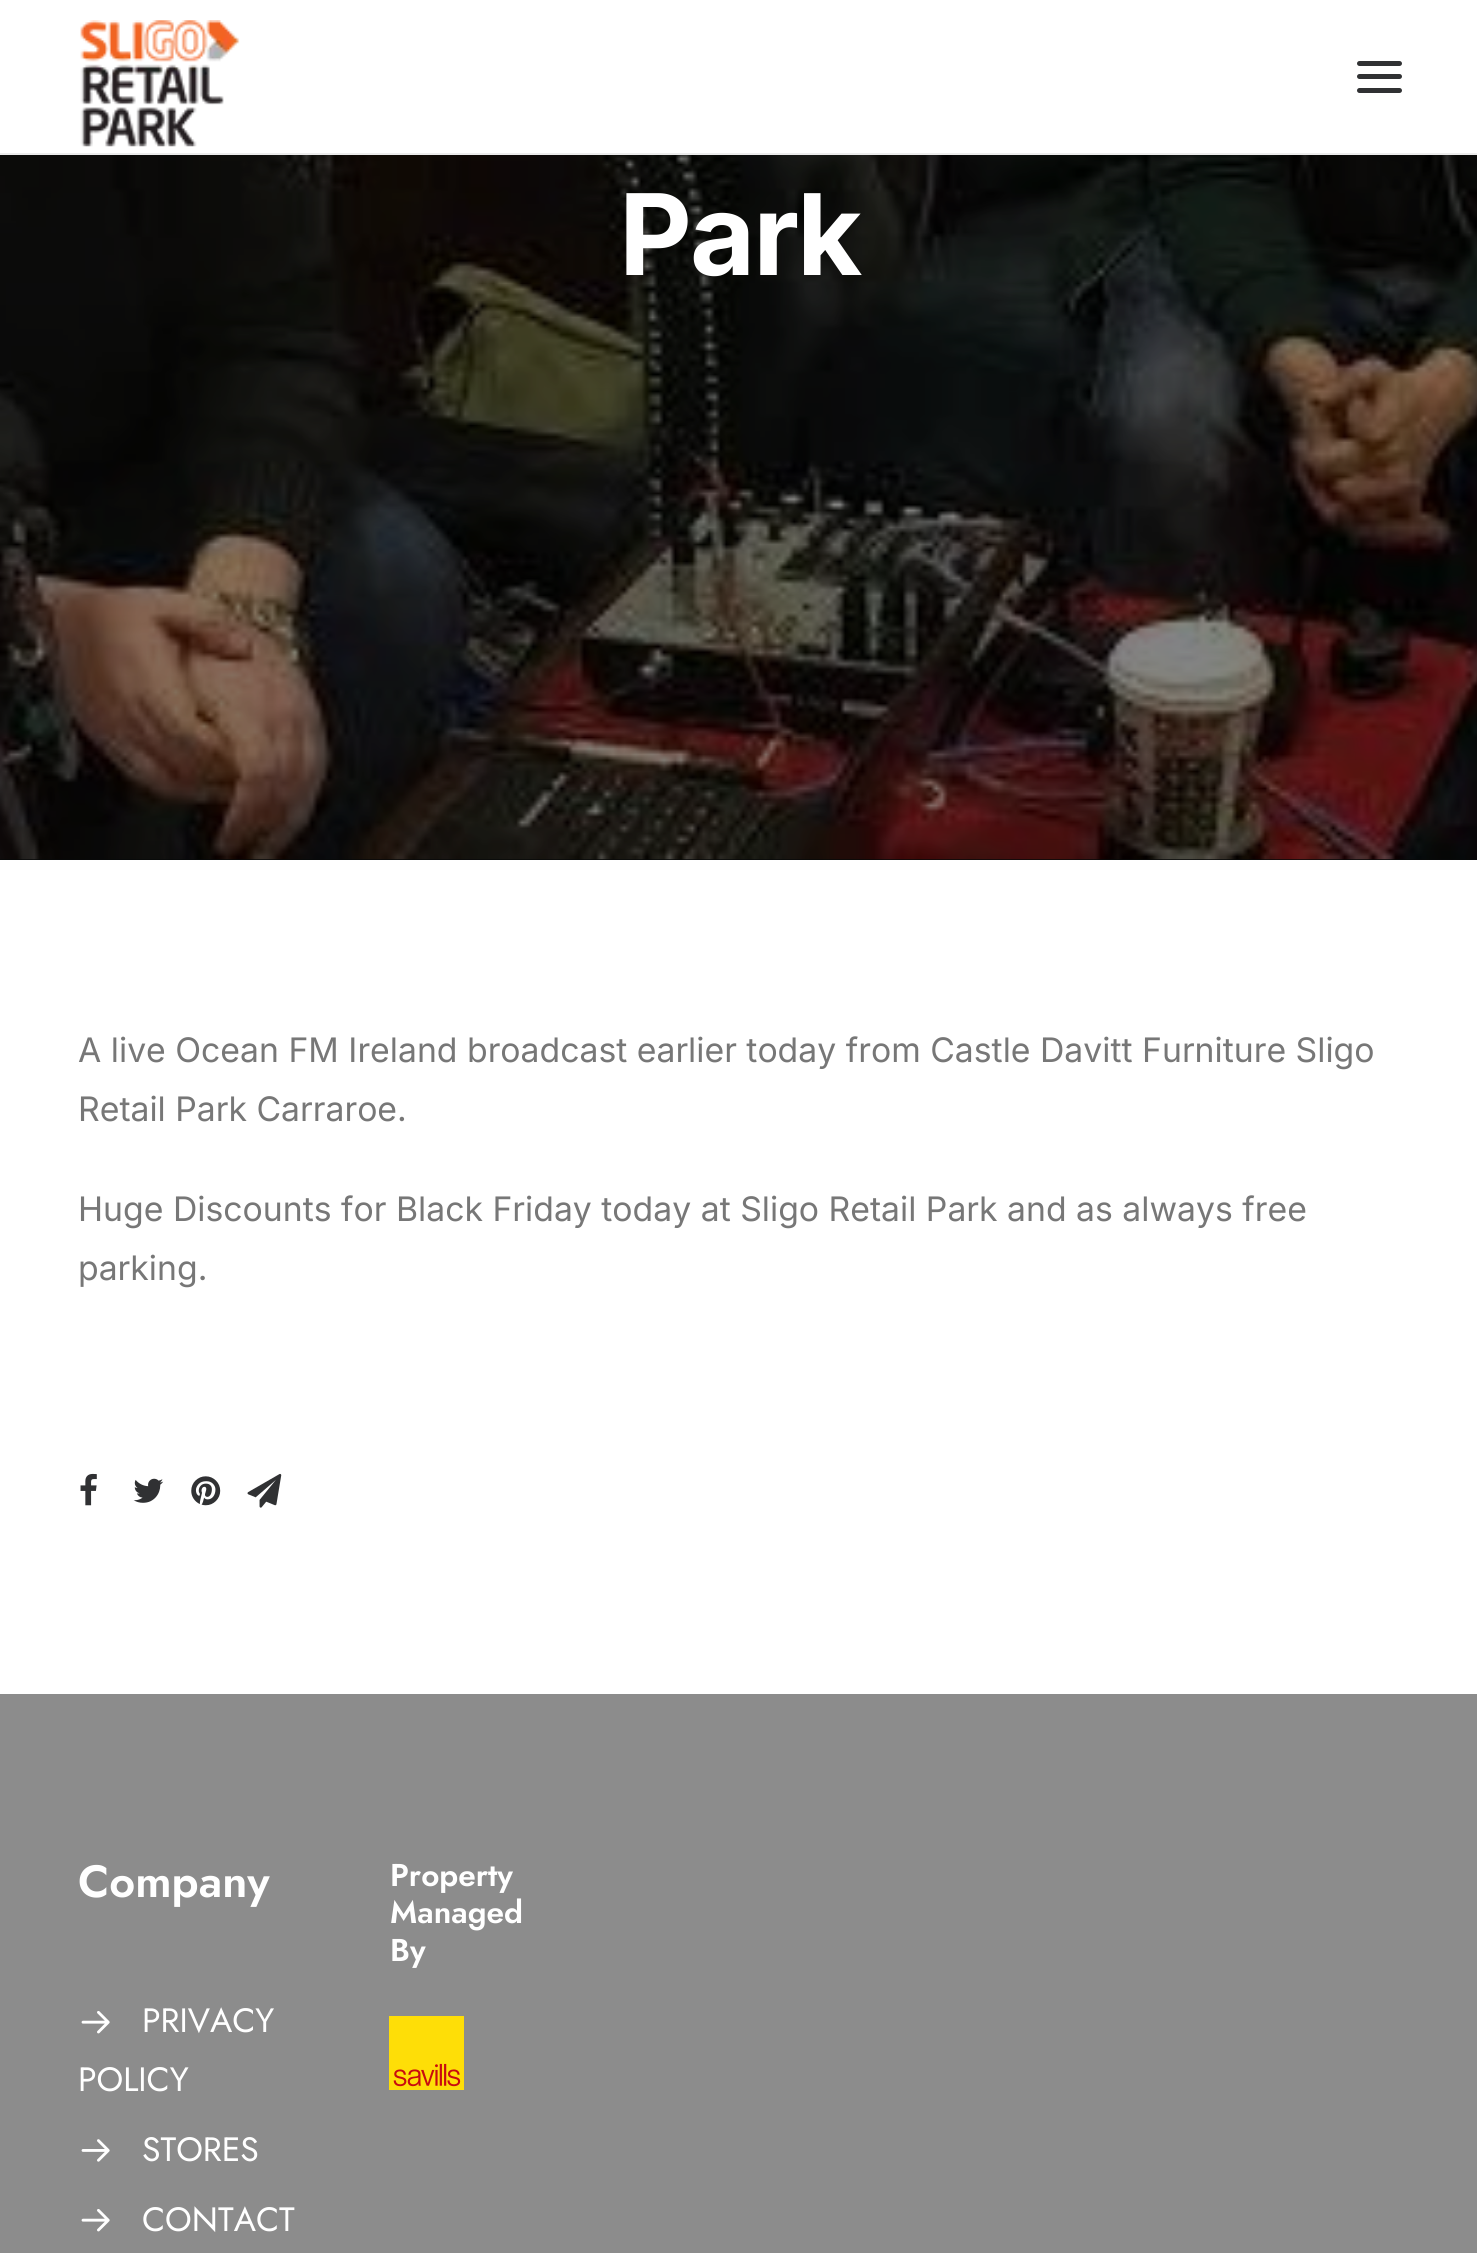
#include <cairo.h>
#include <math.h>
#include <stddef.h>


static void spaced_text(cairo_t *cr, double x, double y, const char *s, double letter, double word) {
    cairo_move_to(cr, x, y);
    while (*s) {
        char ch[5] = {0};
        int n = 0;
        do ch[n++] = *s++; while ((*s & 0xC0) == 0x80);
        cairo_show_text(cr, ch);
        cairo_rel_move_to(cr, letter + word * (*ch == ' '), 0);
    }
}

static void round_rect(cairo_t *cr, double x, double y, double w, double h, double r) {
    cairo_new_sub_path(cr);
    cairo_arc(cr, x + w - r, y + h - r, r, 0, M_PI / 2);
    cairo_arc(cr, x + r, y + h - r, r, M_PI / 2, M_PI);
    cairo_arc(cr, x + r, y + r, r, M_PI, 1.5 * M_PI);
    cairo_arc(cr, x + w - r, y + r, r, 1.5 * M_PI, 2 * M_PI);
    cairo_close_path(cr);
}

static void picture(cairo_t *cr, const char *path, double x, double y, double w, double h) {
    cairo_surface_t *image = cairo_image_surface_create_from_png(path);
    cairo_save(cr);
    cairo_set_source_surface(cr, image, x, y);
    cairo_rectangle(cr, x, y, w, h);
    cairo_fill(cr);
    cairo_restore(cr);
    cairo_surface_destroy(image);
}

int main(void) {
    cairo_surface_t *surface = cairo_image_surface_create(CAIRO_FORMAT_RGB24, 1477, 2253);
    cairo_t *cr = cairo_create(surface);
    cairo_font_options_t *options = cairo_font_options_create();
    cairo_font_options_set_hint_metrics(options, CAIRO_HINT_METRICS_OFF);
    cairo_font_options_set_hint_style(options, CAIRO_HINT_STYLE_NONE);
    cairo_set_font_options(cr, options);
    cairo_set_miter_limit(cr, 4);
    cairo_pattern_t *gradient;
    cairo_set_source_rgb(cr, 0.043, 0.051, 0.051);
    cairo_paint(cr);
    cairo_set_source_rgb(cr, 1, 1, 1);
    cairo_rectangle(cr, 0, 0, 1477, 153);
    cairo_fill(cr);
    cairo_set_source_rgb(cr, 0.922, 0.922, 0.922);
    cairo_rectangle(cr, 0, 153, 1477, 2);
    cairo_fill(cr);
    picture(cr, "img1.png", 80, 20, 160, 127);
    cairo_set_source_rgb(cr, 0.188, 0.192, 0.2);
    round_rect(cr, 1357, 74, 45, 5, 2.5);
    cairo_fill(cr);
    round_rect(cr, 1357, 61, 45, 5, 2.5);
    cairo_fill(cr);
    round_rect(cr, 1357, 88, 45, 5, 2.5);
    cairo_fill(cr);
    picture(cr, "img2.png", 0, 155, 1477, 705);
    gradient = cairo_pattern_create_linear(740, -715, 740, 862);
    cairo_pattern_add_color_stop_rgba(gradient, 0, 0, 0, 0, 0);
    cairo_pattern_add_color_stop_rgba(gradient, 1, 0, 0, 0, 0.3);
    cairo_set_source(cr, gradient);
    cairo_pattern_destroy(gradient);
    cairo_rectangle(cr, 0, 155, 1477, 705);
    cairo_fill(cr);
    cairo_select_font_face(cr, "Inter", CAIRO_FONT_SLANT_NORMAL, CAIRO_FONT_WEIGHT_BOLD);
    cairo_set_font_size(cr, 112.5);
    cairo_set_source_rgb(cr, 1, 1, 1);
    spaced_text(cr, 619, 275, "Park", -2, 0);
    cairo_rectangle(cr, 0, 860, 1477, 834);
    cairo_fill(cr);
    cairo_select_font_face(cr, "Inter", CAIRO_FONT_SLANT_NORMAL, CAIRO_FONT_WEIGHT_NORMAL);
    cairo_set_font_size(cr, 33.75);
    cairo_set_source_rgb(cr, 0.467, 0.467, 0.467);
    cairo_move_to(cr, 78, 1062);
    cairo_show_text(cr, "A live Ocean FM Ireland broadcast earlier today from Castle Davitt Furniture Sligo");
    cairo_move_to(cr, 78, 1121);
    cairo_show_text(cr, "Retail Park Carraroe.");
    cairo_move_to(cr, 78, 1221);
    cairo_show_text(cr, "Huge Discounts for Black Friday today at Sligo Retail Park and as always free");
    cairo_move_to(cr, 78, 1280);
    cairo_show_text(cr, "parking.");
    picture(cr, "img3.png", 80, 1473, 17, 33);
    picture(cr, "img4.png", 133, 1478, 31, 25);
    picture(cr, "img5.png", 191, 1476, 30, 30);
    picture(cr, "img6.png", 247, 1473, 35, 35);
    cairo_set_source_rgb(cr, 0.549, 0.549, 0.549);
    cairo_rectangle(cr, 0, 1694, 1477, 559);
    cairo_fill(cr);
    cairo_select_font_face(cr, "Jost SemiBold", CAIRO_FONT_SLANT_NORMAL, CAIRO_FONT_WEIGHT_NORMAL);
    cairo_set_font_size(cr, 45);
    cairo_set_source_rgb(cr, 1, 1, 1);
    cairo_move_to(cr, 78, 1897);
    cairo_show_text(cr, "Company");
    picture(cr, "img7.png", 81, 2011, 29, 23);
    cairo_select_font_face(cr, "Jost", CAIRO_FONT_SLANT_NORMAL, CAIRO_FONT_WEIGHT_NORMAL);
    cairo_set_font_size(cr, 33.75);
    cairo_move_to(cr, 142, 2032);
    cairo_show_text(cr, "PRIVACY");
    cairo_move_to(cr, 78, 2091);
    cairo_show_text(cr, "POLICY");
    picture(cr, "img8.png", 81, 2139, 29, 23);
    cairo_move_to(cr, 142, 2161);
    cairo_show_text(cr, "STORES");
    picture(cr, "img7.png", 81, 2209, 29, 23);
    cairo_move_to(cr, 142, 2231);
    cairo_show_text(cr, "CONTACT");
    cairo_select_font_face(cr, "Jost SemiBold", CAIRO_FONT_SLANT_NORMAL, CAIRO_FONT_WEIGHT_NORMAL);
    cairo_set_font_size(cr, 31.5);
    cairo_move_to(cr, 390, 1886);
    cairo_show_text(cr, "Property");
    cairo_move_to(cr, 390, 1923);
    cairo_show_text(cr, "Managed");
    cairo_move_to(cr, 390, 1961);
    cairo_show_text(cr, "By");
    picture(cr, "img9.png", 389, 2016, 75, 74);
    cairo_surface_write_to_png(surface, "page.png");
    cairo_font_options_destroy(options);
    cairo_destroy(cr);
    cairo_surface_destroy(surface);
    return 0;
}
